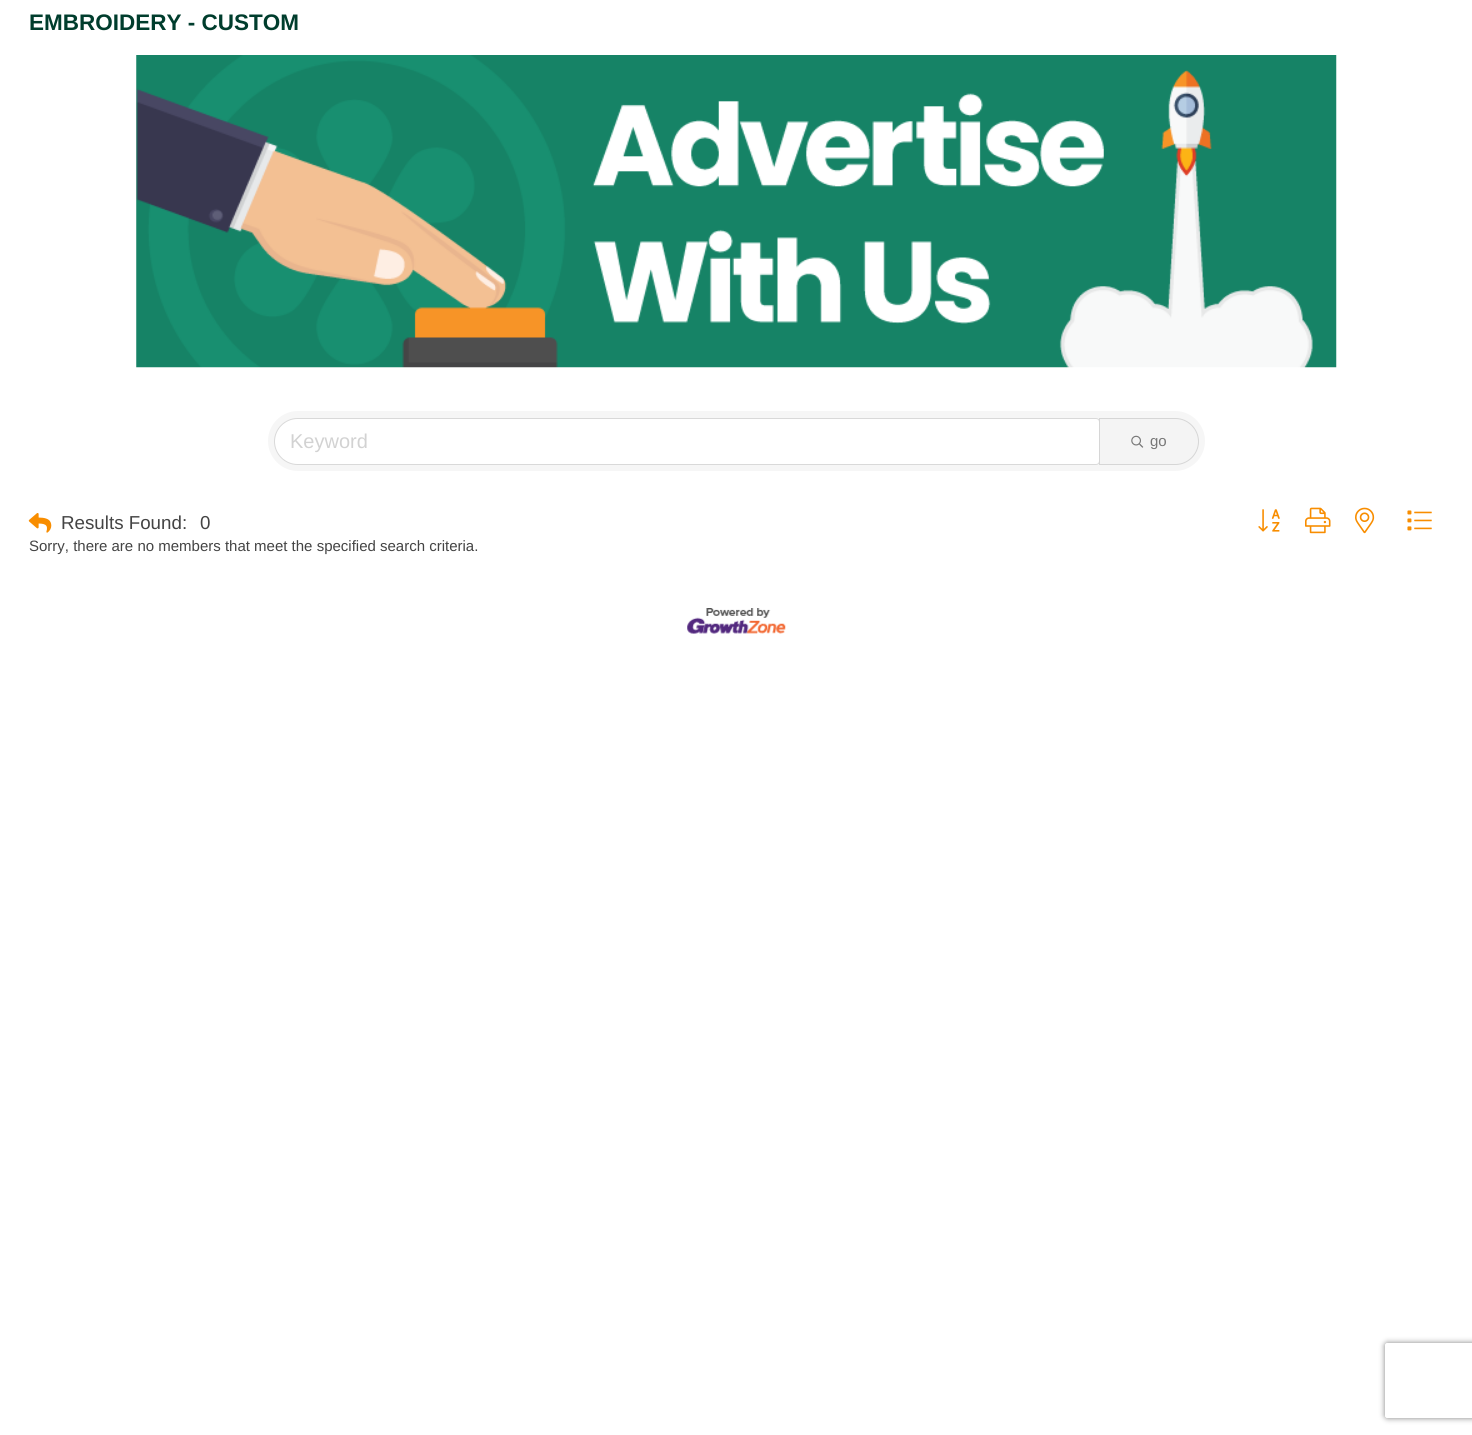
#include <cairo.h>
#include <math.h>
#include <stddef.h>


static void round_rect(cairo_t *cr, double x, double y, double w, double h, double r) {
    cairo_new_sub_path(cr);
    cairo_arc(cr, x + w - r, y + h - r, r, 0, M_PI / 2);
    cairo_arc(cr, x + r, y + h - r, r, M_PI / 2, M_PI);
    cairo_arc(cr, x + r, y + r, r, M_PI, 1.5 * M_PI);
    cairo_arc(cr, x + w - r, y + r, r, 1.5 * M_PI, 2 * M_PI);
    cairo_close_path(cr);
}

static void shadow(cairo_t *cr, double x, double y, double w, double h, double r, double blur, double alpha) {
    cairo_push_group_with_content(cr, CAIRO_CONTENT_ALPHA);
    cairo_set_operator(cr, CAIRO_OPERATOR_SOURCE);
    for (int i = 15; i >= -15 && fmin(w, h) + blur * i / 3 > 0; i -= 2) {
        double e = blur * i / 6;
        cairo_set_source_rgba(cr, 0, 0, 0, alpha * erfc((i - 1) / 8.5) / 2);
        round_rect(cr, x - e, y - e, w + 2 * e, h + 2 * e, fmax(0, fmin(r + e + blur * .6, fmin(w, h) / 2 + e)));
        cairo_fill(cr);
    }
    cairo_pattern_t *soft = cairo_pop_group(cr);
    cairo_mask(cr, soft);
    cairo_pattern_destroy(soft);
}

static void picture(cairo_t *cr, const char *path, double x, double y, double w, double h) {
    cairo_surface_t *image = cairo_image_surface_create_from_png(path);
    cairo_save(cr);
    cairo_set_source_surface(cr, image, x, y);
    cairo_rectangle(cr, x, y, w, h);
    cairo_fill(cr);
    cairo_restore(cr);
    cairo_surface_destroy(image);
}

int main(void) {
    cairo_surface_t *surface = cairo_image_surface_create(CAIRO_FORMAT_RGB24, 1472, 1435);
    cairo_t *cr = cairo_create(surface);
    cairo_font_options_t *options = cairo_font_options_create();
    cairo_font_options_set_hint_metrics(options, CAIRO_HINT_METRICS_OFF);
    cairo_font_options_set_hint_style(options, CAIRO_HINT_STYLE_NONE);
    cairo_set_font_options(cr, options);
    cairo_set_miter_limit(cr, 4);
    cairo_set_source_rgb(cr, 1, 1, 1);
    cairo_paint(cr);
    cairo_select_font_face(cr, "Liberation Sans", CAIRO_FONT_SLANT_NORMAL, CAIRO_FONT_WEIGHT_BOLD);
    cairo_set_font_size(cr, 22.5);
    cairo_set_source_rgb(cr, 0, 0.239, 0.176);
    cairo_move_to(cr, 29, 30);
    cairo_show_text(cr, "EMBROIDERY - CUSTOM");
    picture(cr, "img1.png", 136, 55, 1201, 313);
    cairo_set_source_rgb(cr, 0.961, 0.961, 0.961);
    round_rect(cr, 268, 411, 937, 60, 30);
    cairo_fill(cr);
    cairo_set_source_rgb(cr, 1, 1, 1);
    cairo_new_path(cr);
    cairo_move_to(cr, 297.5, 419);
    cairo_line_to(cr, 1096.5, 419);
    cairo_curve_to(cr, 1098, 419, 1099, 420, 1099, 421.5);
    cairo_line_to(cr, 1099, 461.5);
    cairo_curve_to(cr, 1099, 463, 1098, 464, 1096.5, 464);
    cairo_line_to(cr, 297.5, 464);
    cairo_curve_to(cr, 285, 464, 275, 454, 275, 441.5);
    cairo_curve_to(cr, 275, 429, 285, 419, 297.5, 419);
    cairo_close_path(cr);
    cairo_fill(cr);
    cairo_new_path(cr);
    cairo_move_to(cr, 297.5, 418.5);
    cairo_line_to(cr, 1096, 418.5);
    cairo_curve_to(cr, 1098, 418.5, 1099.5, 420, 1099.5, 422);
    cairo_line_to(cr, 1099.5, 461);
    cairo_curve_to(cr, 1099.5, 463, 1098, 464.5, 1096, 464.5);
    cairo_line_to(cr, 297.5, 464.5);
    cairo_curve_to(cr, 285, 464.5, 274.5, 454, 274.5, 441.5);
    cairo_curve_to(cr, 274.5, 429, 285, 418.5, 297.5, 418.5);
    cairo_close_path(cr);
    cairo_set_source_rgba(cr, 0, 0, 0, 0.12);
    cairo_set_line_width(cr, 1);
    cairo_stroke(cr);
    cairo_select_font_face(cr, "Liberation Sans", CAIRO_FONT_SLANT_NORMAL, CAIRO_FONT_WEIGHT_NORMAL);
    cairo_set_font_size(cr, 20);
    cairo_set_source_rgb(cr, 0.824, 0.824, 0.824);
    cairo_move_to(cr, 290, 448);
    cairo_show_text(cr, "Keyword");
    cairo_set_source_rgb(cr, 0.957, 0.957, 0.957);
    cairo_new_path(cr);
    cairo_move_to(cr, 1099.5, 418.5);
    cairo_line_to(cr, 1175.5, 418.5);
    cairo_curve_to(cr, 1188, 418.5, 1198.5, 429, 1198.5, 441.5);
    cairo_curve_to(cr, 1198.5, 454, 1188, 464.5, 1175.5, 464.5);
    cairo_line_to(cr, 1099.5, 464.5);
    cairo_close_path(cr);
    cairo_fill_preserve(cr);
    cairo_set_source_rgb(cr, 0.839, 0.839, 0.839);
    cairo_stroke(cr);
    picture(cr, "img2.png", 1131, 435, 13, 13);
    cairo_set_font_size(cr, 15);
    cairo_set_source_rgb(cr, 0.467, 0.467, 0.467);
    cairo_move_to(cr, 1150, 446);
    cairo_show_text(cr, "go");
    picture(cr, "img3.png", 28, 513, 24, 20);
    cairo_set_font_size(cr, 18.75);
    cairo_set_source_rgb(cr, 0.267, 0.267, 0.267);
    cairo_move_to(cr, 61, 529);
    cairo_show_text(cr, "Results Found:");
    cairo_move_to(cr, 200, 529);
    cairo_show_text(cr, "0");
    picture(cr, "img4.png", 1258, 509, 22, 23);
    picture(cr, "img5.png", 1305, 507, 26, 27);
    picture(cr, "img6.png", 1355, 507, 20, 27);
    picture(cr, "img7.png", 1407, 510, 25, 21);
    cairo_set_font_size(cr, 15);
    cairo_move_to(cr, 29, 551);
    cairo_show_text(cr, "Sorry, there are no members that meet the specified search criteria.");
    picture(cr, "img8.png", 687, 608, 99, 26);
    cairo_save(cr);
    cairo_set_fill_rule(cr, CAIRO_FILL_RULE_EVEN_ODD);
    cairo_new_path(cr);
    cairo_move_to(cr, 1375, 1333);
    cairo_line_to(cr, 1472, 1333);
    cairo_line_to(cr, 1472, 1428);
    cairo_line_to(cr, 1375, 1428);
    cairo_close_path(cr);
    cairo_move_to(cr, 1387.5, 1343);
    cairo_line_to(cr, 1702.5, 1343);
    cairo_curve_to(cr, 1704, 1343, 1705, 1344, 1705, 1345.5);
    cairo_line_to(cr, 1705, 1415.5);
    cairo_curve_to(cr, 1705, 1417, 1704, 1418, 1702.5, 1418);
    cairo_line_to(cr, 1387.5, 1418);
    cairo_curve_to(cr, 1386, 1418, 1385, 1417, 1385, 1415.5);
    cairo_line_to(cr, 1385, 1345.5);
    cairo_curve_to(cr, 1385, 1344, 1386, 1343, 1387.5, 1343);
    cairo_close_path(cr);
    cairo_clip(cr);
    cairo_set_source_rgb(cr, 0.502, 0.502, 0.502);
    shadow(cr, 1385, 1343, 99, 75, 2.5, 3, 1);
    cairo_restore(cr);
    cairo_surface_write_to_png(surface, "page.png");
    cairo_font_options_destroy(options);
    cairo_destroy(cr);
    cairo_surface_destroy(surface);
    return 0;
}
